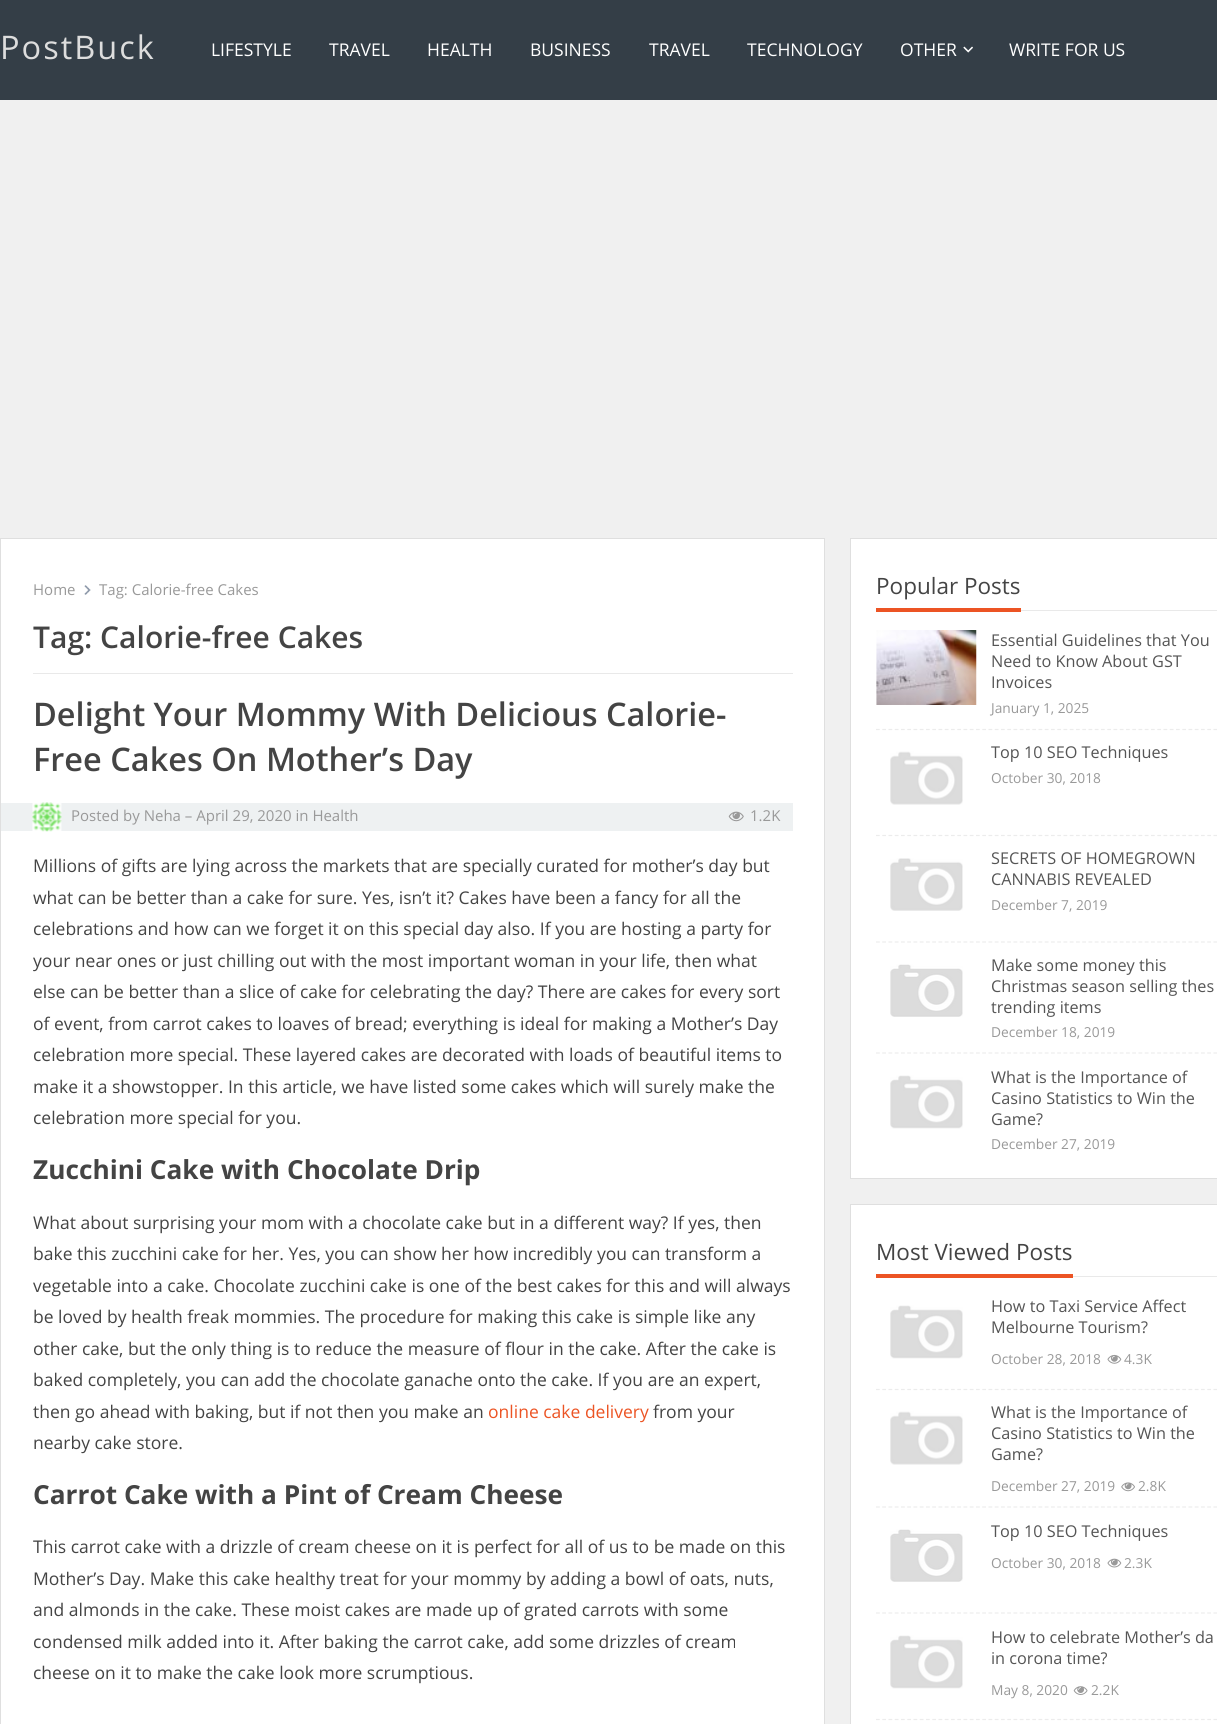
#include <cairo.h>
#include <math.h>
#include <stddef.h>


static void spaced_text(cairo_t *cr, double x, double y, const char *s, double letter, double word) {
    cairo_move_to(cr, x, y);
    while (*s) {
        char ch[5] = {0};
        int n = 0;
        do ch[n++] = *s++; while ((*s & 0xC0) == 0x80);
        cairo_show_text(cr, ch);
        cairo_rel_move_to(cr, letter + word * (*ch == ' '), 0);
    }
}

static void picture(cairo_t *cr, const char *path, double x, double y, double w, double h) {
    cairo_surface_t *image = cairo_image_surface_create_from_png(path);
    cairo_save(cr);
    cairo_set_source_surface(cr, image, x, y);
    cairo_rectangle(cr, x, y, w, h);
    cairo_fill(cr);
    cairo_restore(cr);
    cairo_surface_destroy(image);
}

int main(void) {
    cairo_surface_t *surface = cairo_image_surface_create(CAIRO_FORMAT_RGB24, 1217, 1724);
    cairo_t *cr = cairo_create(surface);
    cairo_font_options_t *options = cairo_font_options_create();
    cairo_font_options_set_hint_metrics(options, CAIRO_HINT_METRICS_OFF);
    cairo_font_options_set_hint_style(options, CAIRO_HINT_STYLE_NONE);
    cairo_set_font_options(cr, options);
    cairo_set_miter_limit(cr, 4);
    cairo_set_source_rgb(cr, 0.941, 0.941, 0.941);
    cairo_paint(cr);
    cairo_set_source_rgb(cr, 0.204, 0.243, 0.278);
    cairo_rectangle(cr, 0, 0, 1217, 100);
    cairo_fill(cr);
    cairo_select_font_face(cr, "Open Sans", CAIRO_FONT_SLANT_NORMAL, CAIRO_FONT_WEIGHT_NORMAL);
    cairo_set_font_size(cr, 32.5);
    cairo_set_source_rgb(cr, 0.867, 0.867, 0.867);
    spaced_text(cr, 0, 59, "PostBuck", 2, 0);
    cairo_set_font_size(cr, 17.5);
    cairo_set_source_rgb(cr, 1, 1, 1);
    cairo_move_to(cr, 211, 56);
    cairo_show_text(cr, "LIFESTYLE");
    cairo_move_to(cr, 329, 56);
    cairo_show_text(cr, "TRAVEL");
    cairo_move_to(cr, 427, 56);
    cairo_show_text(cr, "HEALTH");
    cairo_move_to(cr, 530, 56);
    cairo_show_text(cr, "BUSINESS");
    cairo_move_to(cr, 649, 56);
    cairo_show_text(cr, "TRAVEL");
    cairo_move_to(cr, 747, 56);
    cairo_show_text(cr, "TECHNOLOGY");
    cairo_move_to(cr, 900, 56);
    cairo_show_text(cr, "OTHER");
    picture(cr, "img1.png", 963, 46, 10, 7);
    cairo_move_to(cr, 1009, 56);
    cairo_show_text(cr, "WRITE FOR US");
    cairo_rectangle(cr, 0.5, 538.5, 824, 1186);
    cairo_fill_preserve(cr);
    cairo_set_source_rgb(cr, 0.875, 0.875, 0.875);
    cairo_set_line_width(cr, 1);
    cairo_stroke(cr);
    cairo_set_source_rgb(cr, 0.914, 0.914, 0.914);
    cairo_rectangle(cr, 33, 673, 760, 1);
    cairo_fill(cr);
    cairo_set_font_size(cr, 15);
    cairo_set_source_rgb(cr, 0.6, 0.6, 0.6);
    cairo_move_to(cr, 33, 595);
    cairo_show_text(cr, "Home");
    picture(cr, "img2.png", 84, 585, 7, 10);
    cairo_move_to(cr, 99, 595);
    cairo_show_text(cr, "Tag: Calorie-free Cakes");
    cairo_select_font_face(cr, "Open Sans SemiBold", CAIRO_FONT_SLANT_NORMAL, CAIRO_FONT_WEIGHT_NORMAL);
    cairo_set_font_size(cr, 30);
    cairo_set_source_rgb(cr, 0.267, 0.267, 0.267);
    cairo_move_to(cr, 33, 648);
    cairo_show_text(cr, "Tag: Calorie-free Cakes");
    cairo_set_font_size(cr, 32.5);
    cairo_move_to(cr, 33, 726);
    cairo_show_text(cr, "Delight Your Mommy With Delicious Calorie-");
    cairo_move_to(cr, 33, 771);
    cairo_show_text(cr, "Free Cakes On Mother’s Day");
    cairo_set_source_rgb(cr, 0.933, 0.945, 0.949);
    cairo_rectangle(cr, 1, 803, 792, 28);
    cairo_fill(cr);
    picture(cr, "img3.png", 32, 802, 30, 30);
    cairo_select_font_face(cr, "Open Sans", CAIRO_FONT_SLANT_NORMAL, CAIRO_FONT_WEIGHT_NORMAL);
    cairo_set_font_size(cr, 15);
    cairo_set_source_rgb(cr, 0.6, 0.6, 0.6);
    cairo_move_to(cr, 71, 821);
    cairo_show_text(cr, "Posted by Neha – April 29, 2020 in Health");
    picture(cr, "img4.png", 728, 811, 16, 11);
    cairo_move_to(cr, 750, 821);
    cairo_show_text(cr, "1.2K");
    cairo_set_font_size(cr, 17.5);
    cairo_set_source_rgb(cr, 0.267, 0.267, 0.267);
    cairo_move_to(cr, 33, 872);
    cairo_show_text(cr, "Millions of gifts are lying across the markets that are specially curated for mother’s day but");
    cairo_move_to(cr, 33, 904);
    cairo_show_text(cr, "what can be better than a cake for sure. Yes, isn’t it? Cakes have been a fancy for all the");
    cairo_move_to(cr, 33, 935);
    cairo_show_text(cr, "celebrations and how can we forget it on this special day also. If you are hosting a party for");
    cairo_move_to(cr, 33, 967);
    cairo_show_text(cr, "your near ones or just chilling out with the most important woman in your life, then what");
    cairo_move_to(cr, 33, 998);
    cairo_show_text(cr, "else can be better than a slice of cake for celebrating the day? There are cakes for every sort");
    cairo_move_to(cr, 33, 1030);
    cairo_show_text(cr, "of event, from carrot cakes to loaves of bread; everything is ideal for making a Mother’s Day");
    cairo_move_to(cr, 33, 1061);
    cairo_show_text(cr, "celebration more special. These layered cakes are decorated with loads of beautiful items to");
    cairo_move_to(cr, 33, 1093);
    cairo_show_text(cr, "make it a showstopper. In this article, we have listed some cakes which will surely make the");
    cairo_move_to(cr, 33, 1124);
    cairo_show_text(cr, "celebration more special for you.");
    cairo_select_font_face(cr, "Open Sans", CAIRO_FONT_SLANT_NORMAL, CAIRO_FONT_WEIGHT_BOLD);
    cairo_set_font_size(cr, 26.25);
    cairo_move_to(cr, 33, 1179);
    cairo_show_text(cr, "Zucchini Cake with Chocolate Drip");
    cairo_select_font_face(cr, "Open Sans", CAIRO_FONT_SLANT_NORMAL, CAIRO_FONT_WEIGHT_NORMAL);
    cairo_set_font_size(cr, 17.5);
    cairo_move_to(cr, 33, 1229);
    cairo_show_text(cr, "What about surprising your mom with a chocolate cake but in a different way? If yes, then");
    cairo_move_to(cr, 33, 1260);
    cairo_show_text(cr, "bake this zucchini cake for her. Yes, you can show her how incredibly you can transform a");
    cairo_move_to(cr, 33, 1292);
    cairo_show_text(cr, "vegetable into a cake. Chocolate zucchini cake is one of the best cakes for this and will always");
    cairo_move_to(cr, 33, 1323);
    cairo_show_text(cr, "be loved by health freak mommies. The procedure for making this cake is simple like any");
    cairo_move_to(cr, 33, 1355);
    cairo_show_text(cr, "other cake, but the only thing is to reduce the measure of flour in the cake. After the cake is");
    cairo_move_to(cr, 33, 1386);
    cairo_show_text(cr, "baked completely, you can add the chocolate ganache onto the cake. If you are an expert,");
    cairo_move_to(cr, 33, 1418);
    cairo_show_text(cr, "then go ahead with baking, but if not then you make an");
    cairo_set_source_rgb(cr, 0.922, 0.329, 0.141);
    cairo_move_to(cr, 488, 1418);
    cairo_show_text(cr, "online cake delivery");
    cairo_set_source_rgb(cr, 0.267, 0.267, 0.267);
    cairo_move_to(cr, 653, 1418);
    cairo_show_text(cr, "from your");
    cairo_move_to(cr, 33, 1449);
    cairo_show_text(cr, "nearby cake store.");
    cairo_select_font_face(cr, "Open Sans", CAIRO_FONT_SLANT_NORMAL, CAIRO_FONT_WEIGHT_BOLD);
    cairo_set_font_size(cr, 26.25);
    cairo_move_to(cr, 33, 1504);
    cairo_show_text(cr, "Carrot Cake with a Pint of Cream Cheese");
    cairo_select_font_face(cr, "Open Sans", CAIRO_FONT_SLANT_NORMAL, CAIRO_FONT_WEIGHT_NORMAL);
    cairo_set_font_size(cr, 17.5);
    cairo_move_to(cr, 33, 1553);
    cairo_show_text(cr, "This carrot cake with a drizzle of cream cheese on it is perfect for all of us to be made on this");
    cairo_move_to(cr, 33, 1585);
    cairo_show_text(cr, "Mother’s Day. Make this cake healthy treat for your mommy by adding a bowl of oats, nuts,");
    cairo_move_to(cr, 33, 1616);
    cairo_show_text(cr, "and almonds in the cake. These moist cakes are made up of grated carrots with some");
    cairo_move_to(cr, 33, 1648);
    cairo_show_text(cr, "condensed milk added into it. After baking the carrot cake, add some drizzles of cream");
    cairo_move_to(cr, 33, 1679);
    cairo_show_text(cr, "cheese on it to make the cake look more scrumptious.");
    cairo_set_source_rgb(cr, 1, 1, 1);
    cairo_rectangle(cr, 850.5, 538.5, 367, 640);
    cairo_fill_preserve(cr);
    cairo_set_source_rgb(cr, 0.875, 0.875, 0.875);
    cairo_stroke(cr);
    cairo_set_source_rgb(cr, 0.914, 0.914, 0.914);
    cairo_rectangle(cr, 1021, 610, 196, 1);
    cairo_fill(cr);
    cairo_set_source_rgb(cr, 0.922, 0.329, 0.141);
    cairo_rectangle(cr, 876, 608, 145, 4);
    cairo_fill(cr);
    cairo_set_font_size(cr, 22.5);
    cairo_set_source_rgb(cr, 0.267, 0.267, 0.267);
    cairo_move_to(cr, 876, 594);
    cairo_show_text(cr, "Popular Posts");
    cairo_new_path(cr);
    cairo_move_to(cr, 876, 729.5);
    cairo_line_to(cr, 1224, 729.5);
    cairo_set_source_rgb(cr, 0.922, 0.922, 0.922);
    cairo_set_line_width(cr, 1.2);
    cairo_set_dash(cr, (double[]){3.75, 2.5}, 2, 0);
    cairo_stroke(cr);
    picture(cr, "img5.png", 876, 630, 101, 75);
    cairo_set_font_size(cr, 16.25);
    cairo_set_source_rgb(cr, 0.333, 0.333, 0.333);
    cairo_move_to(cr, 991, 646);
    cairo_show_text(cr, "Essential Guidelines that You");
    cairo_move_to(cr, 991, 667);
    cairo_show_text(cr, "Need to Know About GST");
    cairo_move_to(cr, 991, 688);
    cairo_show_text(cr, "Invoices");
    cairo_set_font_size(cr, 13.75);
    cairo_set_source_rgb(cr, 0.6, 0.6, 0.6);
    cairo_move_to(cr, 991, 713);
    cairo_show_text(cr, "January 1, 2025");
    cairo_new_path(cr);
    cairo_move_to(cr, 876, 835.5);
    cairo_line_to(cr, 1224, 835.5);
    cairo_set_source_rgb(cr, 0.922, 0.922, 0.922);
    cairo_stroke(cr);
    picture(cr, "img6.png", 890, 751, 73, 54);
    cairo_set_font_size(cr, 16.25);
    cairo_set_source_rgb(cr, 0.333, 0.333, 0.333);
    cairo_move_to(cr, 991, 758);
    cairo_show_text(cr, "Top 10 SEO Techniques");
    cairo_set_font_size(cr, 13.75);
    cairo_set_source_rgb(cr, 0.6, 0.6, 0.6);
    cairo_move_to(cr, 991, 783);
    cairo_show_text(cr, "October 30, 2018");
    cairo_new_path(cr);
    cairo_move_to(cr, 876, 942);
    cairo_line_to(cr, 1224, 942);
    cairo_set_source_rgb(cr, 0.922, 0.922, 0.922);
    cairo_stroke(cr);
    picture(cr, "img7.png", 890, 858, 73, 53);
    cairo_set_font_size(cr, 16.25);
    cairo_set_source_rgb(cr, 0.333, 0.333, 0.333);
    cairo_move_to(cr, 991, 864);
    cairo_show_text(cr, "SECRETS OF HOMEGROWN");
    cairo_move_to(cr, 991, 885);
    cairo_show_text(cr, "CANNABIS REVEALED");
    cairo_set_font_size(cr, 13.75);
    cairo_set_source_rgb(cr, 0.6, 0.6, 0.6);
    cairo_move_to(cr, 991, 910);
    cairo_show_text(cr, "December 7, 2019");
    cairo_new_path(cr);
    cairo_move_to(cr, 876, 1053);
    cairo_line_to(cr, 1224, 1053);
    cairo_set_source_rgb(cr, 0.922, 0.922, 0.922);
    cairo_stroke(cr);
    picture(cr, "img8.png", 890, 964, 73, 53);
    cairo_set_font_size(cr, 16.25);
    cairo_set_source_rgb(cr, 0.333, 0.333, 0.333);
    cairo_move_to(cr, 991, 971);
    cairo_show_text(cr, "Make some money this");
    cairo_move_to(cr, 991, 992);
    cairo_show_text(cr, "Christmas season selling thes");
    cairo_move_to(cr, 991, 1013);
    cairo_show_text(cr, "trending items");
    cairo_set_font_size(cr, 13.75);
    cairo_set_source_rgb(cr, 0.6, 0.6, 0.6);
    cairo_move_to(cr, 991, 1037);
    cairo_show_text(cr, "December 18, 2019");
    picture(cr, "img9.png", 890, 1075, 73, 54);
    cairo_set_font_size(cr, 16.25);
    cairo_set_source_rgb(cr, 0.333, 0.333, 0.333);
    cairo_move_to(cr, 991, 1083);
    cairo_show_text(cr, "What is the Importance of");
    cairo_move_to(cr, 991, 1104);
    cairo_show_text(cr, "Casino Statistics to Win the");
    cairo_move_to(cr, 991, 1125);
    cairo_show_text(cr, "Game?");
    cairo_set_font_size(cr, 13.75);
    cairo_set_source_rgb(cr, 0.6, 0.6, 0.6);
    cairo_move_to(cr, 991, 1149);
    cairo_show_text(cr, "December 27, 2019");
    cairo_set_source_rgb(cr, 1, 1, 1);
    cairo_rectangle(cr, 850.5, 1204.5, 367, 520);
    cairo_fill_preserve(cr);
    cairo_set_source_rgb(cr, 0.875, 0.875, 0.875);
    cairo_set_line_width(cr, 1);
    cairo_set_dash(cr, NULL, 0, 0);
    cairo_stroke(cr);
    cairo_set_source_rgb(cr, 0.914, 0.914, 0.914);
    cairo_rectangle(cr, 1073, 1276, 144, 1);
    cairo_fill(cr);
    cairo_set_source_rgb(cr, 0.922, 0.329, 0.141);
    cairo_rectangle(cr, 876, 1274, 197, 4);
    cairo_fill(cr);
    cairo_set_font_size(cr, 22.5);
    cairo_set_source_rgb(cr, 0.267, 0.267, 0.267);
    cairo_move_to(cr, 876, 1260);
    cairo_show_text(cr, "Most Viewed Posts");
    cairo_new_path(cr);
    cairo_move_to(cr, 876, 1389.5);
    cairo_line_to(cr, 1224, 1389.5);
    cairo_set_source_rgb(cr, 0.922, 0.922, 0.922);
    cairo_set_line_width(cr, 1.2);
    cairo_set_dash(cr, (double[]){3.75, 2.5}, 2, 0);
    cairo_stroke(cr);
    picture(cr, "img9.png", 890, 1305, 73, 54);
    cairo_set_font_size(cr, 16.25);
    cairo_set_source_rgb(cr, 0.333, 0.333, 0.333);
    cairo_move_to(cr, 991, 1312);
    cairo_show_text(cr, "How to Taxi Service Affect");
    cairo_move_to(cr, 991, 1333);
    cairo_show_text(cr, "Melbourne Tourism?");
    cairo_set_font_size(cr, 13.75);
    cairo_set_source_rgb(cr, 0.6, 0.6, 0.6);
    cairo_move_to(cr, 991, 1364);
    cairo_show_text(cr, "October 28, 2018");
    picture(cr, "img10.png", 1107, 1354, 15, 10);
    cairo_move_to(cr, 1124, 1364);
    cairo_show_text(cr, "4.3K");
    cairo_new_path(cr);
    cairo_move_to(cr, 876, 1507);
    cairo_line_to(cr, 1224, 1507);
    cairo_set_source_rgb(cr, 0.922, 0.922, 0.922);
    cairo_stroke(cr);
    picture(cr, "img6.png", 890, 1411, 73, 54);
    cairo_set_font_size(cr, 16.25);
    cairo_set_source_rgb(cr, 0.333, 0.333, 0.333);
    cairo_move_to(cr, 991, 1418);
    cairo_show_text(cr, "What is the Importance of");
    cairo_move_to(cr, 991, 1439);
    cairo_show_text(cr, "Casino Statistics to Win the");
    cairo_move_to(cr, 991, 1460);
    cairo_show_text(cr, "Game?");
    cairo_set_font_size(cr, 13.75);
    cairo_set_source_rgb(cr, 0.6, 0.6, 0.6);
    cairo_move_to(cr, 991, 1491);
    cairo_show_text(cr, "December 27, 2019");
    picture(cr, "img11.png", 1121, 1482, 14, 10);
    cairo_move_to(cr, 1138, 1491);
    cairo_show_text(cr, "2.8K");
    cairo_new_path(cr);
    cairo_move_to(cr, 876, 1613);
    cairo_line_to(cr, 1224, 1613);
    cairo_set_source_rgb(cr, 0.922, 0.922, 0.922);
    cairo_stroke(cr);
    picture(cr, "img8.png", 890, 1529, 73, 53);
    cairo_set_font_size(cr, 16.25);
    cairo_set_source_rgb(cr, 0.333, 0.333, 0.333);
    cairo_move_to(cr, 991, 1537);
    cairo_show_text(cr, "Top 10 SEO Techniques");
    cairo_set_font_size(cr, 13.75);
    cairo_set_source_rgb(cr, 0.6, 0.6, 0.6);
    cairo_move_to(cr, 991, 1568);
    cairo_show_text(cr, "October 30, 2018");
    picture(cr, "img12.png", 1107, 1558, 15, 10);
    cairo_move_to(cr, 1124, 1568);
    cairo_show_text(cr, "2.3K");
    cairo_new_path(cr);
    cairo_move_to(cr, 876, 1719.5);
    cairo_line_to(cr, 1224, 1719.5);
    cairo_set_source_rgb(cr, 0.922, 0.922, 0.922);
    cairo_stroke(cr);
    picture(cr, "img9.png", 890, 1635, 73, 54);
    cairo_set_font_size(cr, 16.25);
    cairo_set_source_rgb(cr, 0.333, 0.333, 0.333);
    cairo_move_to(cr, 991, 1643);
    cairo_show_text(cr, "How to celebrate Mother’s da");
    cairo_move_to(cr, 991, 1664);
    cairo_show_text(cr, "in corona time?");
    cairo_set_font_size(cr, 13.75);
    cairo_set_source_rgb(cr, 0.6, 0.6, 0.6);
    cairo_move_to(cr, 991, 1695);
    cairo_show_text(cr, "May 8, 2020");
    picture(cr, "img13.png", 1073, 1686, 15, 9);
    cairo_move_to(cr, 1091, 1695);
    cairo_show_text(cr, "2.2K");
    cairo_surface_write_to_png(surface, "page.png");
    cairo_font_options_destroy(options);
    cairo_destroy(cr);
    cairo_surface_destroy(surface);
    return 0;
}
